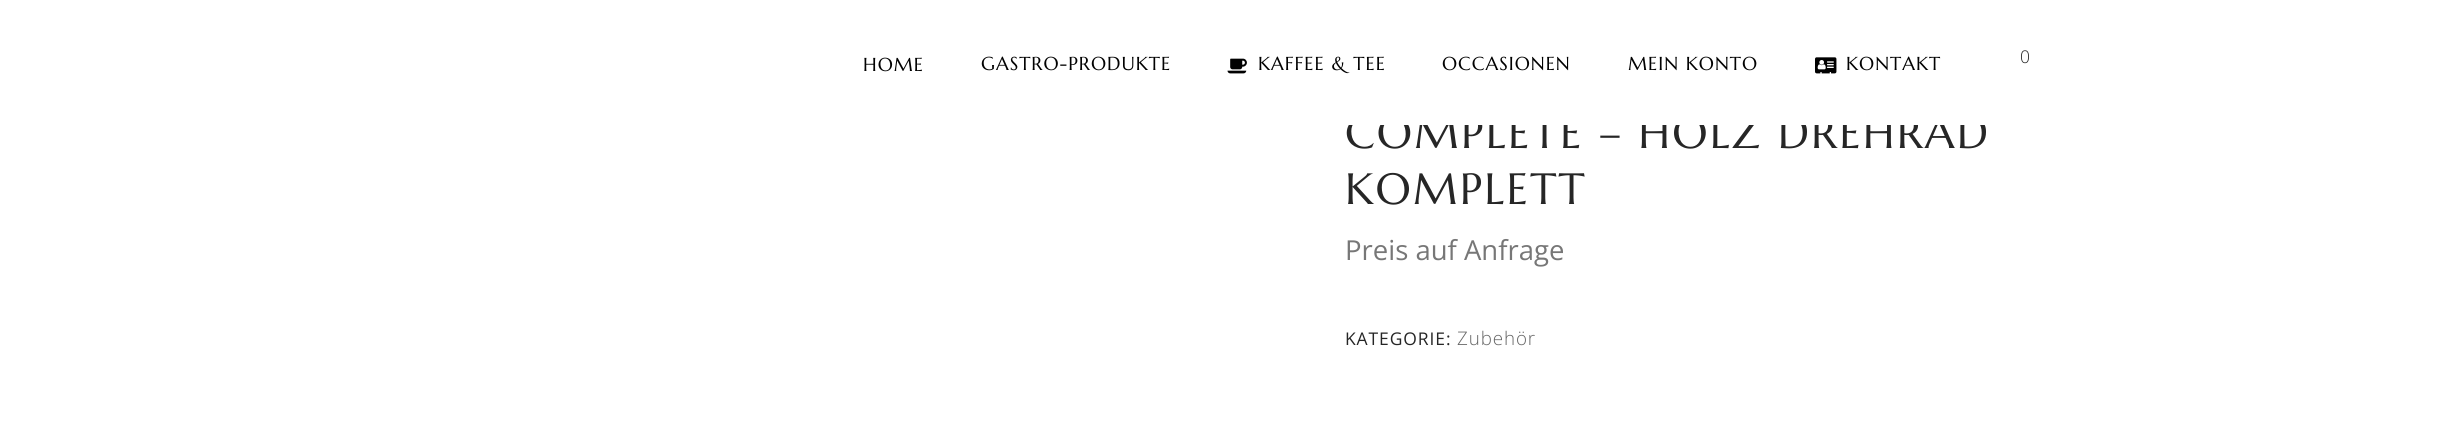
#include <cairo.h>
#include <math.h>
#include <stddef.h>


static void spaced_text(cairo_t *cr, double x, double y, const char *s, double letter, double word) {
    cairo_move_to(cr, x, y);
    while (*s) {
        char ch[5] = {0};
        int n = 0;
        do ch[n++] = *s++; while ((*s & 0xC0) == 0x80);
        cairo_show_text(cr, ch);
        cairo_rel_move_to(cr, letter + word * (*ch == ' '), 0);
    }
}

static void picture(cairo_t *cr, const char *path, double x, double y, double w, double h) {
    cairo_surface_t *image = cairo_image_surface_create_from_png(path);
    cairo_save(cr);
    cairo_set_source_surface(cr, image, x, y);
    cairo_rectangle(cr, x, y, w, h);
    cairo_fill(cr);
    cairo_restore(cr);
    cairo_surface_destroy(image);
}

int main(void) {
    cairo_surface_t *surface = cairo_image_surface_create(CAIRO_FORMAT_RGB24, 2454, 422);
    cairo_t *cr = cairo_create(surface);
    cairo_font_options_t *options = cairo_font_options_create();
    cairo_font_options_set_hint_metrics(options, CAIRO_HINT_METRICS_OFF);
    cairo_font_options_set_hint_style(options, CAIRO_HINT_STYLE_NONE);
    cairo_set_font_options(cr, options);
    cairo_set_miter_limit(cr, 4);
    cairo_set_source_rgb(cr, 1, 1, 1);
    cairo_paint(cr);
    cairo_select_font_face(cr, "Marcellus", CAIRO_FONT_SLANT_NORMAL, CAIRO_FONT_WEIGHT_NORMAL);
    cairo_set_font_size(cr, 43.75);
    cairo_set_source_rgb(cr, 0.149, 0.149, 0.149);
    spaced_text(cr, 1345, 148, "COMPLETE – HOLZ DREHRAD", 2.2, 0);
    cairo_set_source_rgb(cr, 1, 1, 1);
    cairo_rectangle(cr, 1348, 116, 637, 9);
    cairo_fill(cr);
    cairo_set_font_size(cr, 18.75);
    cairo_set_source_rgb(cr, 0.004, 0.004, 0.004);
    spaced_text(cr, 863, 71, "HOME", 1, 0);
    spaced_text(cr, 981, 70, "GASTRO-PRODUKTE", 1, 0);
    picture(cr, "img1.png", 1227, 58, 20, 16);
    spaced_text(cr, 1258, 70, "KAFFEE & TEE", 1, 0);
    spaced_text(cr, 1442, 70, "OCCASIONEN", 1, 0);
    spaced_text(cr, 1628, 70, "MEIN KONTO", 1, 0);
    picture(cr, "img2.png", 1815, 57, 22, 17);
    spaced_text(cr, 1846, 70, "KONTAKT", 1, 0);
    cairo_select_font_face(cr, "Open Sans Light", CAIRO_FONT_SLANT_NORMAL, CAIRO_FONT_WEIGHT_NORMAL);
    cairo_set_font_size(cr, 17.5);
    cairo_set_source_rgb(cr, 0.149, 0.149, 0.149);
    cairo_move_to(cr, 2020, 63);
    cairo_show_text(cr, "0");
    cairo_select_font_face(cr, "Marcellus", CAIRO_FONT_SLANT_NORMAL, CAIRO_FONT_WEIGHT_NORMAL);
    cairo_set_font_size(cr, 43.75);
    spaced_text(cr, 1345, 204, "KOMPLETT", 2.2, 0);
    cairo_select_font_face(cr, "Open Sans", CAIRO_FONT_SLANT_NORMAL, CAIRO_FONT_WEIGHT_NORMAL);
    cairo_set_font_size(cr, 27.5);
    cairo_set_source_rgb(cr, 0.467, 0.467, 0.467);
    cairo_move_to(cr, 1345, 260);
    cairo_show_text(cr, "Preis auf Anfrage");
    cairo_set_font_size(cr, 17.5);
    cairo_set_source_rgb(cr, 0.149, 0.149, 0.149);
    spaced_text(cr, 1345, 345, "KATEGORIE:", 0.9, 0);
    cairo_select_font_face(cr, "Open Sans Light", CAIRO_FONT_SLANT_NORMAL, CAIRO_FONT_WEIGHT_NORMAL);
    cairo_set_font_size(cr, 18.75);
    cairo_set_source_rgb(cr, 0.396, 0.396, 0.396);
    spaced_text(cr, 1457, 345, "Zubehör", 0.9, 0);
    cairo_surface_write_to_png(surface, "page.png");
    cairo_font_options_destroy(options);
    cairo_destroy(cr);
    cairo_surface_destroy(surface);
    return 0;
}
